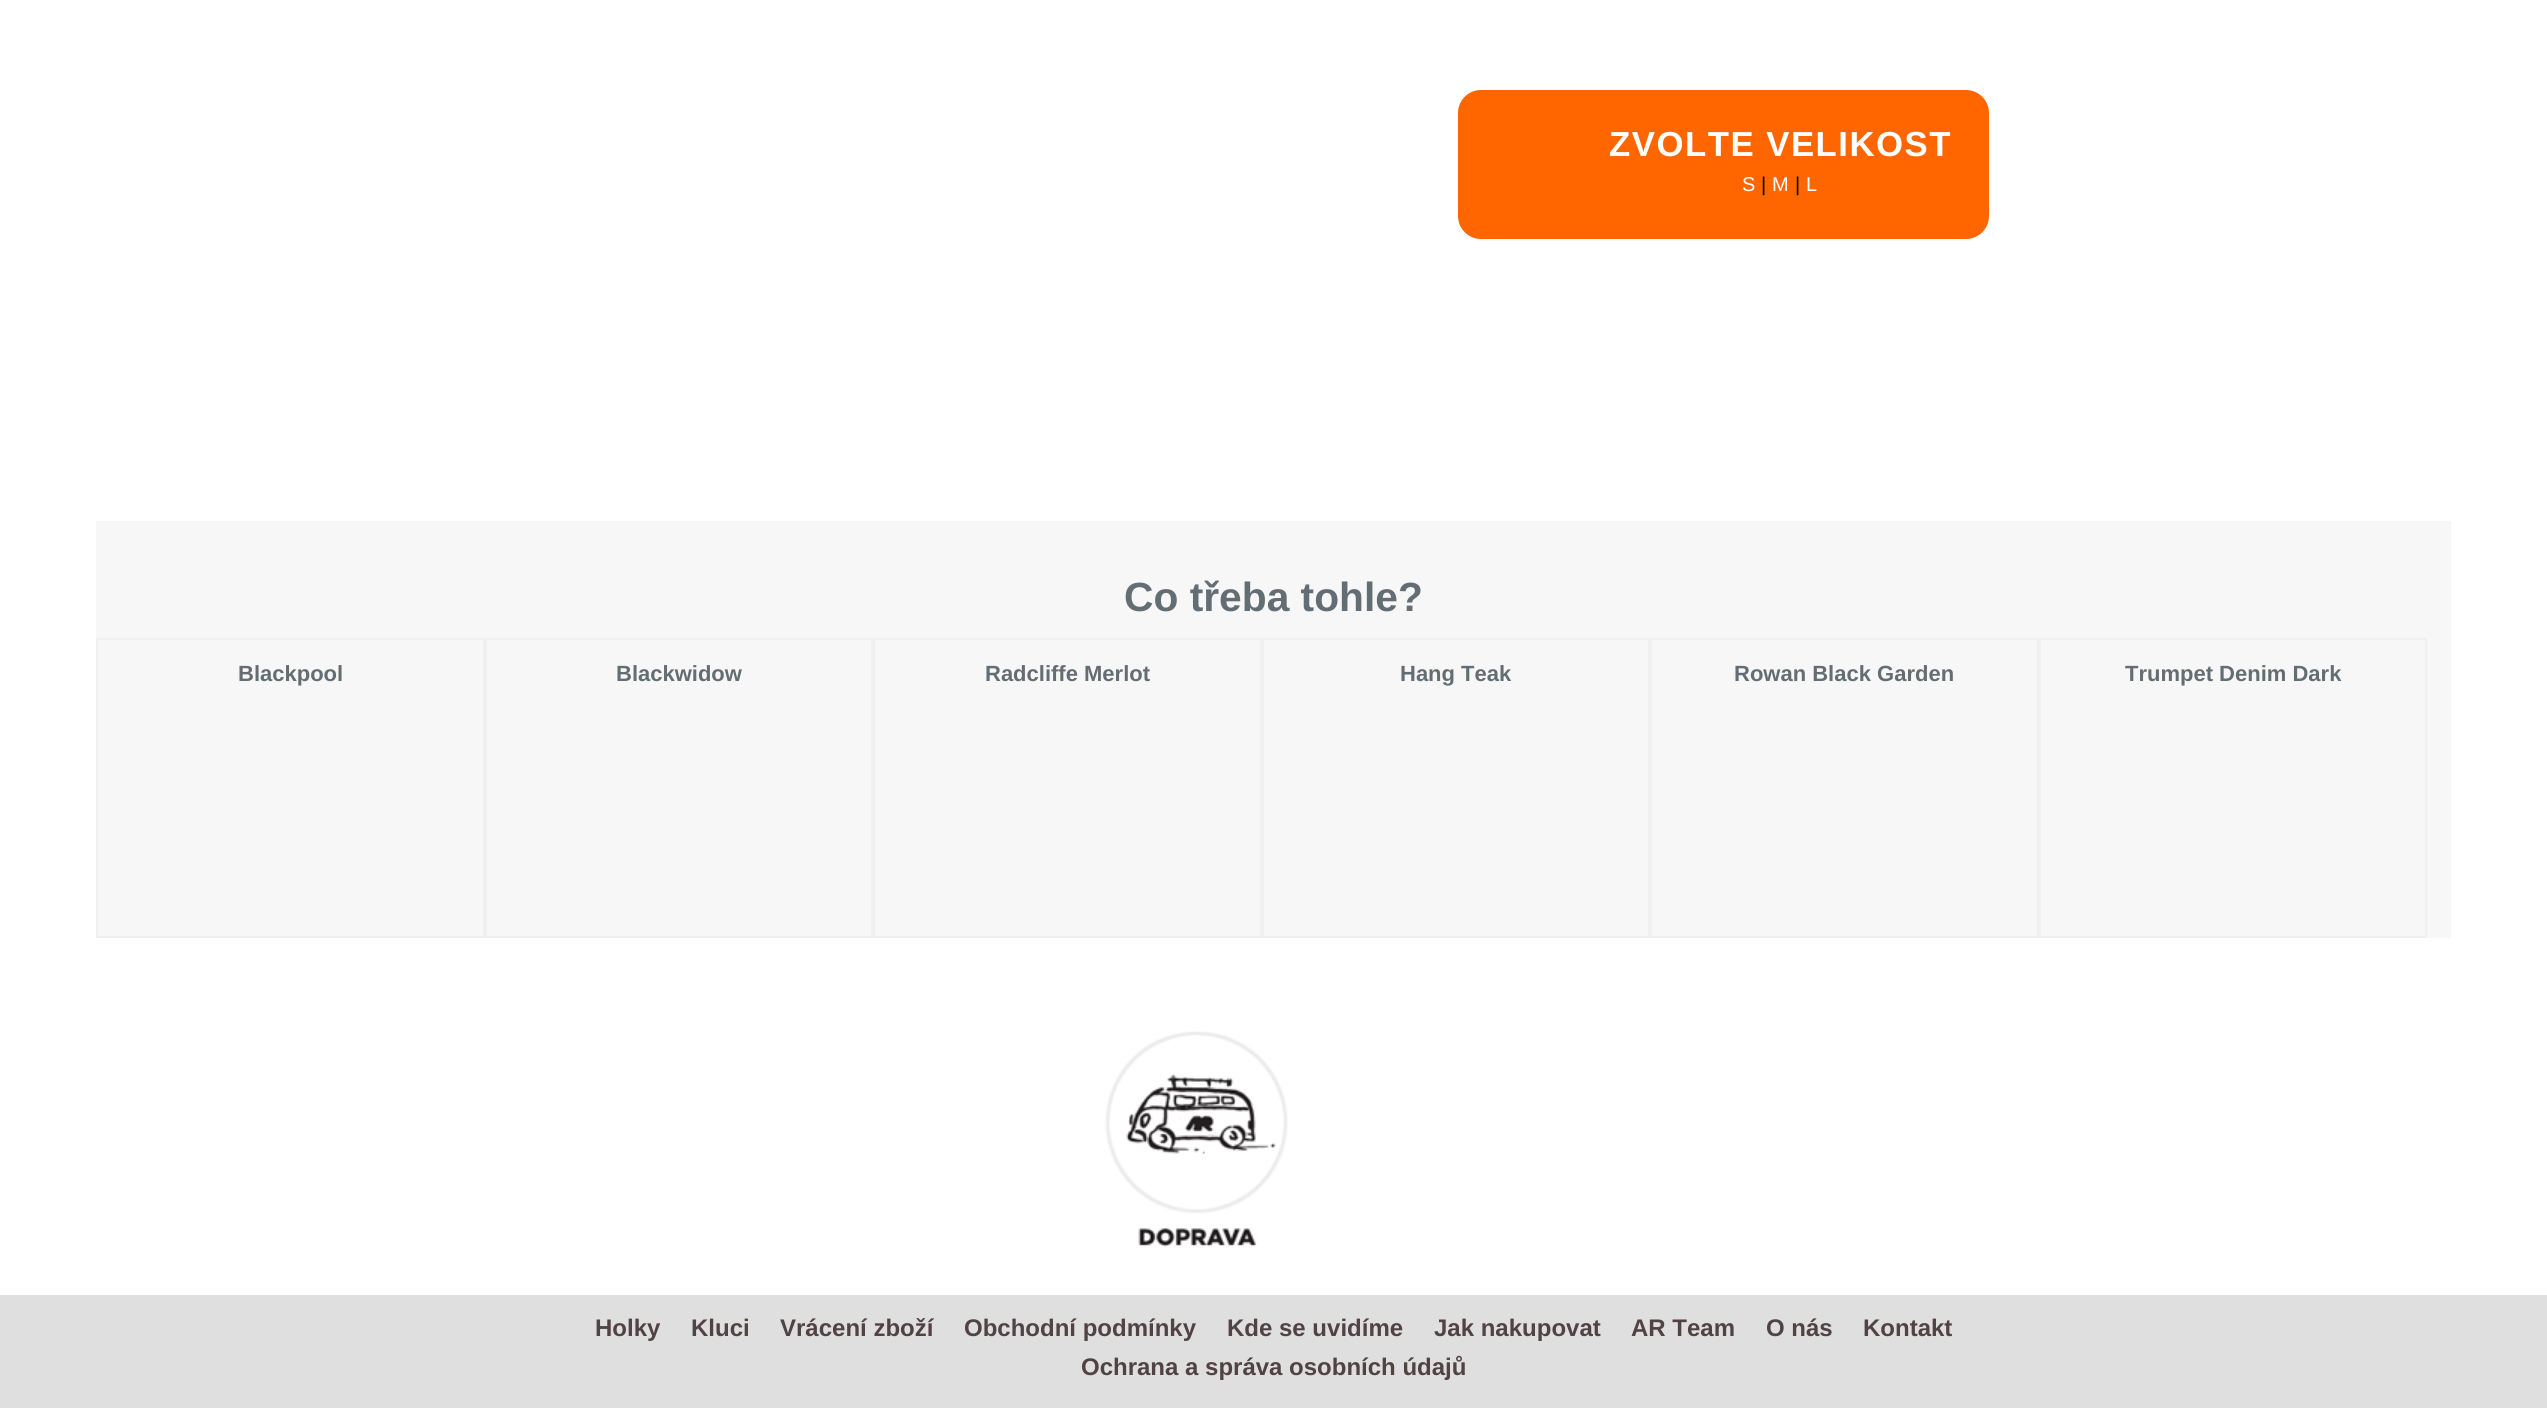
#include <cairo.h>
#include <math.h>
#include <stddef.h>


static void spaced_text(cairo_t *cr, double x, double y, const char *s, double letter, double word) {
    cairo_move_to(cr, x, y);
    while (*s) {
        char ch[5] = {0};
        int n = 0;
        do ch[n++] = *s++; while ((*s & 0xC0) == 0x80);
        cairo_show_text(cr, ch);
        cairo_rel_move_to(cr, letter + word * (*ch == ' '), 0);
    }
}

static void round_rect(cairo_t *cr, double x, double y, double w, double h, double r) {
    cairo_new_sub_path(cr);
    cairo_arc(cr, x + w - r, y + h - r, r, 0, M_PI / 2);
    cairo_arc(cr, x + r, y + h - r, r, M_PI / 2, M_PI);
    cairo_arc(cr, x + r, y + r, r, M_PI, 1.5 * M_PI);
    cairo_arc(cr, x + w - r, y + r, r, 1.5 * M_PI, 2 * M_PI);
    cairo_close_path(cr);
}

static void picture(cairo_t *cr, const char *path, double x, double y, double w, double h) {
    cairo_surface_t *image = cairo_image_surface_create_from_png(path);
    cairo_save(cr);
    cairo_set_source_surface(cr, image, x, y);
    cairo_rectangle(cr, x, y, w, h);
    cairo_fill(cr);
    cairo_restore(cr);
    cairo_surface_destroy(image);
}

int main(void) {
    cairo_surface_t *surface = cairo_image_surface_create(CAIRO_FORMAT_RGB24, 2547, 1408);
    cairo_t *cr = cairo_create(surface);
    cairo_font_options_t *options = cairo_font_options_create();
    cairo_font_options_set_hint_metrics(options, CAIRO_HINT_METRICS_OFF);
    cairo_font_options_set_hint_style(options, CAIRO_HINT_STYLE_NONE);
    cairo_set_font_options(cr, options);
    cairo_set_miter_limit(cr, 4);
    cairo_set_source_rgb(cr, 1, 1, 1);
    cairo_paint(cr);
    cairo_set_source_rgb(cr, 1, 0.4, 0);
    round_rect(cr, 1458, 90, 531, 149, 23);
    cairo_fill(cr);
    cairo_select_font_face(cr, "Liberation Sans", CAIRO_FONT_SLANT_NORMAL, CAIRO_FONT_WEIGHT_BOLD);
    cairo_set_font_size(cr, 34.75);
    cairo_set_source_rgb(cr, 1, 1, 1);
    spaced_text(cr, 1609, 156, "ZVOLTE VELIKOST", 1.5, 0);
    cairo_select_font_face(cr, "Liberation Sans", CAIRO_FONT_SLANT_NORMAL, CAIRO_FONT_WEIGHT_NORMAL);
    cairo_set_font_size(cr, 20);
    cairo_move_to(cr, 1742, 191);
    cairo_show_text(cr, "S");
    cairo_set_source_rgb(cr, 0, 0, 0);
    cairo_move_to(cr, 1761, 191);
    cairo_show_text(cr, "|");
    cairo_set_source_rgb(cr, 1, 1, 1);
    cairo_move_to(cr, 1772, 191);
    cairo_show_text(cr, "M");
    cairo_set_source_rgb(cr, 0, 0, 0);
    cairo_move_to(cr, 1795, 191);
    cairo_show_text(cr, "|");
    cairo_set_source_rgb(cr, 1, 1, 1);
    cairo_move_to(cr, 1806, 191);
    cairo_show_text(cr, "L");
    cairo_set_source_rgb(cr, 0.965, 0.965, 0.965);
    cairo_rectangle(cr, 96, 521, 2355, 417);
    cairo_fill(cr);
    cairo_select_font_face(cr, "Liberation Sans", CAIRO_FONT_SLANT_NORMAL, CAIRO_FONT_WEIGHT_BOLD);
    cairo_set_font_size(cr, 40.75);
    cairo_set_source_rgb(cr, 0.388, 0.431, 0.455);
    cairo_move_to(cr, 1124, 611);
    cairo_show_text(cr, "Co třeba tohle?");
    cairo_rectangle(cr, 97, 639, 387, 298);
    cairo_set_source_rgb(cr, 0.941, 0.941, 0.941);
    cairo_stroke(cr);
    cairo_set_font_size(cr, 22);
    cairo_set_source_rgb(cr, 0.388, 0.431, 0.455);
    cairo_move_to(cr, 238, 681);
    cairo_show_text(cr, "Blackpool");
    cairo_rectangle(cr, 486, 639, 386, 298);
    cairo_set_source_rgb(cr, 0.941, 0.941, 0.941);
    cairo_stroke(cr);
    cairo_set_source_rgb(cr, 0.388, 0.431, 0.455);
    cairo_move_to(cr, 616, 681);
    cairo_show_text(cr, "Blackwidow");
    cairo_rectangle(cr, 874, 639, 387, 298);
    cairo_set_source_rgb(cr, 0.941, 0.941, 0.941);
    cairo_stroke(cr);
    cairo_set_source_rgb(cr, 0.388, 0.431, 0.455);
    cairo_move_to(cr, 985, 681);
    cairo_show_text(cr, "Radcliffe Merlot");
    cairo_rectangle(cr, 1263, 639, 386, 298);
    cairo_set_source_rgb(cr, 0.941, 0.941, 0.941);
    cairo_stroke(cr);
    cairo_set_source_rgb(cr, 0.388, 0.431, 0.455);
    cairo_move_to(cr, 1400, 681);
    cairo_show_text(cr, "Hang Teak");
    cairo_rectangle(cr, 1651, 639, 387, 298);
    cairo_set_source_rgb(cr, 0.941, 0.941, 0.941);
    cairo_stroke(cr);
    cairo_set_source_rgb(cr, 0.388, 0.431, 0.455);
    cairo_move_to(cr, 1734, 681);
    cairo_show_text(cr, "Rowan Black Garden");
    cairo_rectangle(cr, 2040, 639, 386, 298);
    cairo_set_source_rgb(cr, 0.941, 0.941, 0.941);
    cairo_stroke(cr);
    cairo_set_source_rgb(cr, 0.388, 0.431, 0.455);
    cairo_move_to(cr, 2125, 681);
    cairo_show_text(cr, "Trumpet Denim Dark");
    picture(cr, "img1.png", 1105, 1031, 183, 216);
    cairo_set_source_rgb(cr, 0.875, 0.875, 0.875);
    cairo_rectangle(cr, 0, 1295, 2547, 113);
    cairo_fill(cr);
    cairo_set_font_size(cr, 24);
    cairo_set_source_rgb(cr, 0.318, 0.259, 0.267);
    cairo_move_to(cr, 595, 1336);
    cairo_show_text(cr, "Holky");
    cairo_move_to(cr, 691, 1336);
    cairo_show_text(cr, "Kluci");
    cairo_move_to(cr, 780, 1336);
    cairo_show_text(cr, "Vrácení zboží");
    cairo_move_to(cr, 964, 1336);
    cairo_show_text(cr, "Obchodní podmínky");
    cairo_move_to(cr, 1227, 1336);
    cairo_show_text(cr, "Kde se uvidíme");
    cairo_move_to(cr, 1434, 1336);
    cairo_show_text(cr, "Jak nakupovat");
    cairo_move_to(cr, 1631, 1336);
    cairo_show_text(cr, "AR Team");
    cairo_move_to(cr, 1766, 1336);
    cairo_show_text(cr, "O nás");
    cairo_move_to(cr, 1863, 1336);
    cairo_show_text(cr, "Kontakt");
    cairo_move_to(cr, 1081, 1375);
    cairo_show_text(cr, "Ochrana a správa osobních údajů");
    cairo_surface_write_to_png(surface, "page.png");
    cairo_font_options_destroy(options);
    cairo_destroy(cr);
    cairo_surface_destroy(surface);
    return 0;
}
